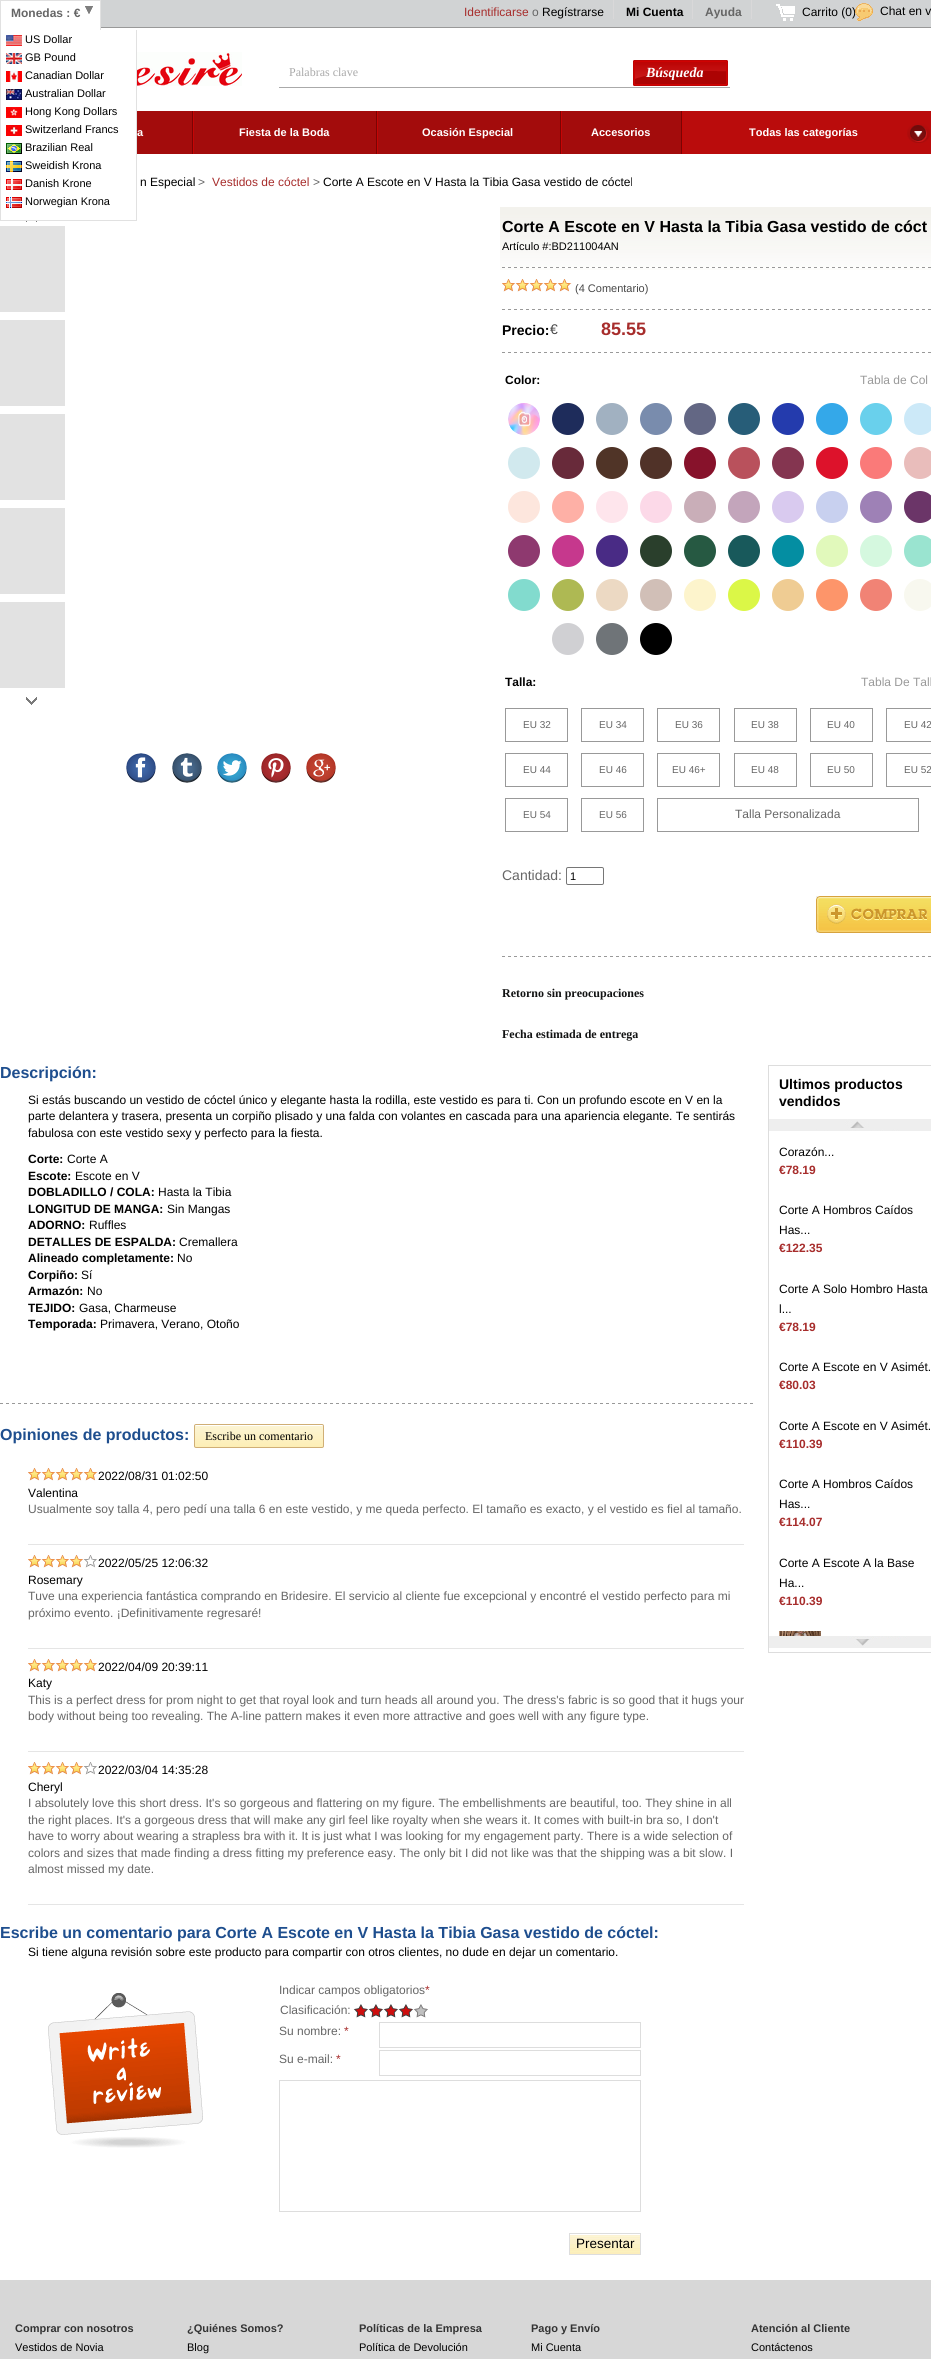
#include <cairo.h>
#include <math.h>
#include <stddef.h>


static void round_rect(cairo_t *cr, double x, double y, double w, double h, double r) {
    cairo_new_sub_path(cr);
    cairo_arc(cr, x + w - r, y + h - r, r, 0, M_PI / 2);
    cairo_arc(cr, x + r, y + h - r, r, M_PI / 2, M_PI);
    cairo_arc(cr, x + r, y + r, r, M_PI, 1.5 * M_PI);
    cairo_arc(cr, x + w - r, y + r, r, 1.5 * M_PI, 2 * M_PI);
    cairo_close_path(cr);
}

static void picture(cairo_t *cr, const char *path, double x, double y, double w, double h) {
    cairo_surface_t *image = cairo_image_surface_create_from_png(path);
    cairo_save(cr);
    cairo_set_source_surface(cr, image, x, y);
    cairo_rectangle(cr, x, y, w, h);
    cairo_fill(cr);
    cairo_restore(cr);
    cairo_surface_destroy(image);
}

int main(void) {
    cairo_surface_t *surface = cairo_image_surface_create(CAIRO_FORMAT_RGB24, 931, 2359);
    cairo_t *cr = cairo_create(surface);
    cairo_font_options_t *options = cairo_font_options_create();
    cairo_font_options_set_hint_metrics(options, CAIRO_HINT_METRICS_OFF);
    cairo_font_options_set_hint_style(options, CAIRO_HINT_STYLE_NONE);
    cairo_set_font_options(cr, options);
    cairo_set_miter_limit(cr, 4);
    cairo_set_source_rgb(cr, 1, 1, 1);
    cairo_paint(cr);
    cairo_set_source_rgb(cr, 0.82, 0.827, 0.831);
    cairo_rectangle(cr, 101, 0, 830, 27);
    cairo_fill(cr);
    cairo_set_source_rgb(cr, 0.6, 0.6, 0.6);
    cairo_rectangle(cr, 101, 27, 830, 1);
    cairo_fill(cr);
    picture(cr, "img1.png", 85, 6, 8, 8);
    cairo_set_source_rgb(cr, 0.882, 0.882, 0.882);
    cairo_rectangle(cr, 0, 0, 101, 1);
    cairo_fill(cr);
    cairo_rectangle(cr, 100, 0, 1, 30);
    cairo_fill(cr);
    cairo_rectangle(cr, 0, 0, 1, 30);
    cairo_fill(cr);
    cairo_select_font_face(cr, "Liberation Sans", CAIRO_FONT_SLANT_NORMAL, CAIRO_FONT_WEIGHT_BOLD);
    cairo_set_font_size(cr, 12);
    cairo_set_source_rgb(cr, 0.4, 0.4, 0.4);
    cairo_move_to(cr, 11, 17);
    cairo_show_text(cr, "Monedas : €");
    cairo_set_source_rgb(cr, 0.882, 0.882, 0.882);
    cairo_rectangle(cr, 136, 30, 1, 191);
    cairo_fill(cr);
    cairo_rectangle(cr, 0, 220, 137, 1);
    cairo_fill(cr);
    cairo_rectangle(cr, 0, 30, 1, 191);
    cairo_fill(cr);
    picture(cr, "img2.png", 6, 35, 16, 11);
    cairo_select_font_face(cr, "Liberation Sans", CAIRO_FONT_SLANT_NORMAL, CAIRO_FONT_WEIGHT_NORMAL);
    cairo_set_font_size(cr, 11);
    cairo_set_source_rgb(cr, 0, 0, 0);
    cairo_move_to(cr, 25, 43);
    cairo_show_text(cr, "US Dollar");
    picture(cr, "img3.png", 6, 53, 16, 11);
    cairo_move_to(cr, 25, 61);
    cairo_show_text(cr, "GB Pound");
    picture(cr, "img4.png", 6, 71, 16, 11);
    cairo_move_to(cr, 25, 79);
    cairo_show_text(cr, "Canadian Dollar");
    picture(cr, "img5.png", 6, 89, 16, 11);
    cairo_move_to(cr, 25, 97);
    cairo_show_text(cr, "Australian Dollar");
    picture(cr, "img6.png", 6, 107, 16, 11);
    cairo_move_to(cr, 25, 115);
    cairo_show_text(cr, "Hong Kong Dollars");
    picture(cr, "img7.png", 6, 125, 16, 11);
    cairo_move_to(cr, 25, 133);
    cairo_show_text(cr, "Switzerland Francs");
    picture(cr, "img8.png", 6, 143, 16, 11);
    cairo_move_to(cr, 25, 151);
    cairo_show_text(cr, "Brazilian Real");
    picture(cr, "img9.png", 6, 161, 16, 11);
    cairo_move_to(cr, 25, 169);
    cairo_show_text(cr, "Sweidish Krona");
    picture(cr, "img10.png", 6, 179, 16, 11);
    cairo_move_to(cr, 25, 187);
    cairo_show_text(cr, "Danish Krone");
    picture(cr, "img11.png", 6, 197, 16, 11);
    cairo_move_to(cr, 25, 205);
    cairo_show_text(cr, "Norwegian Krona");
    cairo_set_source_rgb(cr, 0.851, 0.847, 0.851);
    cairo_rectangle(cr, 613, 0, 1, 19);
    cairo_fill(cr);
    cairo_set_font_size(cr, 12);
    cairo_set_source_rgb(cr, 0.655, 0.176, 0.173);
    cairo_move_to(cr, 464, 16);
    cairo_show_text(cr, "Identificarse");
    cairo_set_source_rgb(cr, 0.4, 0.4, 0.4);
    cairo_move_to(cr, 532, 16);
    cairo_show_text(cr, "o");
    cairo_set_source_rgb(cr, 0, 0, 0);
    cairo_move_to(cr, 542, 16);
    cairo_show_text(cr, "Regístrarse");
    cairo_set_source_rgb(cr, 0.851, 0.847, 0.851);
    cairo_rectangle(cr, 692, 0, 1, 19);
    cairo_fill(cr);
    cairo_select_font_face(cr, "Liberation Sans", CAIRO_FONT_SLANT_NORMAL, CAIRO_FONT_WEIGHT_BOLD);
    cairo_set_source_rgb(cr, 0, 0, 0);
    cairo_move_to(cr, 626, 16);
    cairo_show_text(cr, "Mi Cuenta");
    cairo_set_source_rgb(cr, 0.851, 0.847, 0.851);
    cairo_rectangle(cr, 751, 0, 1, 19);
    cairo_fill(cr);
    cairo_set_source_rgb(cr, 0.4, 0.4, 0.4);
    cairo_move_to(cr, 705, 16);
    cairo_show_text(cr, "Ayuda");
    picture(cr, "img12.png", 776, 4, 19, 17);
    cairo_select_font_face(cr, "Liberation Sans", CAIRO_FONT_SLANT_NORMAL, CAIRO_FONT_WEIGHT_NORMAL);
    cairo_set_source_rgb(cr, 0, 0, 0);
    cairo_move_to(cr, 802, 16);
    cairo_show_text(cr, "Carrito (0)");
    picture(cr, "img13.png", 855, 3, 18, 18);
    cairo_move_to(cr, 880, 15);
    cairo_show_text(cr, "Chat en v");
    picture(cr, "img14.png", 137, 52, 105, 34);
    cairo_select_font_face(cr, "Liberation Serif", CAIRO_FONT_SLANT_NORMAL, CAIRO_FONT_WEIGHT_NORMAL);
    cairo_set_source_rgb(cr, 0.663, 0.663, 0.663);
    cairo_move_to(cr, 289, 76);
    cairo_show_text(cr, "Palabras clave");
    picture(cr, "img15.png", 633, 60, 95, 26);
    cairo_select_font_face(cr, "Liberation Serif", CAIRO_FONT_SLANT_ITALIC, CAIRO_FONT_WEIGHT_BOLD);
    cairo_set_font_size(cr, 14);
    cairo_set_source_rgb(cr, 1, 1, 1);
    cairo_move_to(cr, 646, 77);
    cairo_show_text(cr, "Búsqueda");
    cairo_set_source_rgb(cr, 0.667, 0.667, 0.667);
    cairo_rectangle(cr, 279, 87, 451, 1);
    cairo_fill(cr);
    cairo_set_source_rgb(cr, 0.639, 0.047, 0.047);
    cairo_rectangle(cr, 137, 111, 544, 43);
    cairo_fill(cr);
    cairo_select_font_face(cr, "Liberation Sans", CAIRO_FONT_SLANT_NORMAL, CAIRO_FONT_WEIGHT_BOLD);
    cairo_set_font_size(cr, 11);
    cairo_set_source_rgb(cr, 1, 1, 1);
    cairo_move_to(cr, 137, 136);
    cairo_show_text(cr, "a");
    picture(cr, "img16.png", 192, 111, 2, 43);
    cairo_move_to(cr, 239, 136);
    cairo_show_text(cr, "Fiesta de la Boda");
    picture(cr, "img16.png", 376, 111, 2, 43);
    cairo_move_to(cr, 422, 136);
    cairo_show_text(cr, "Ocasión Especial");
    picture(cr, "img16.png", 560, 111, 2, 43);
    cairo_move_to(cr, 591, 136);
    cairo_show_text(cr, "Accesorios");
    picture(cr, "img17.png", 683, 111, 248, 43);
    picture(cr, "img16.png", 681, 111, 2, 43);
    cairo_move_to(cr, 749, 136);
    cairo_show_text(cr, "Todas las categorías");
    cairo_select_font_face(cr, "Liberation Sans", CAIRO_FONT_SLANT_NORMAL, CAIRO_FONT_WEIGHT_NORMAL);
    cairo_set_font_size(cr, 12);
    cairo_set_source_rgb(cr, 0, 0, 0);
    cairo_move_to(cr, 140, 186);
    cairo_show_text(cr, "n Especial");
    cairo_set_source_rgb(cr, 0.4, 0.4, 0.4);
    cairo_move_to(cr, 198, 186);
    cairo_show_text(cr, ">");
    cairo_set_source_rgb(cr, 0.655, 0.176, 0.173);
    cairo_move_to(cr, 212, 186);
    cairo_show_text(cr, "Vestidos de cóctel");
    cairo_set_source_rgb(cr, 0.4, 0.4, 0.4);
    cairo_move_to(cr, 313, 186);
    cairo_show_text(cr, ">");
    cairo_set_source_rgb(cr, 0, 0, 0);
    cairo_move_to(cr, 323, 186);
    cairo_show_text(cr, "Corte A Escote en V Hasta la Tibia Gasa vestido de cóctel");
    picture(cr, "img18.png", 26, 221, 11, 1);
    cairo_set_source_rgb(cr, 0.886, 0.886, 0.886);
    cairo_rectangle(cr, 0, 226, 65, 86);
    cairo_fill(cr);
    cairo_rectangle(cr, 0, 320, 65, 86);
    cairo_fill(cr);
    cairo_rectangle(cr, 0, 414, 65, 86);
    cairo_fill(cr);
    cairo_rectangle(cr, 0, 508, 65, 86);
    cairo_fill(cr);
    cairo_rectangle(cr, 0, 602, 65, 86);
    cairo_fill(cr);
    picture(cr, "img19.png", 26, 697, 11, 8);
    picture(cr, "img20.png", 126, 753, 30, 30);
    picture(cr, "img21.png", 172, 753, 30, 30);
    picture(cr, "img22.png", 217, 753, 30, 30);
    picture(cr, "img23.png", 261, 753, 30, 30);
    picture(cr, "img24.png", 306, 753, 30, 30);
    picture(cr, "img25.png", 500, 207, 431, 63);
    cairo_select_font_face(cr, "Liberation Sans", CAIRO_FONT_SLANT_NORMAL, CAIRO_FONT_WEIGHT_BOLD);
    cairo_set_font_size(cr, 16);
    cairo_set_source_rgb(cr, 0, 0, 0);
    cairo_move_to(cr, 502, 232);
    cairo_show_text(cr, "Corte A Escote en V Hasta la Tibia Gasa vestido de cóct");
    cairo_select_font_face(cr, "Liberation Sans", CAIRO_FONT_SLANT_NORMAL, CAIRO_FONT_WEIGHT_NORMAL);
    cairo_set_font_size(cr, 11);
    cairo_move_to(cr, 502, 250);
    cairo_show_text(cr, "Artículo #:BD211004AN");
    picture(cr, "img26.png", 502, 267, 429, 1);
    picture(cr, "img27.png", 502, 279, 70, 13);
    cairo_set_source_rgb(cr, 0.278, 0.278, 0.278);
    cairo_move_to(cr, 575, 292);
    cairo_show_text(cr, "(4 Comentario)");
    picture(cr, "img26.png", 502, 309, 429, 1);
    cairo_select_font_face(cr, "Liberation Sans", CAIRO_FONT_SLANT_NORMAL, CAIRO_FONT_WEIGHT_BOLD);
    cairo_set_font_size(cr, 14);
    cairo_set_source_rgb(cr, 0, 0, 0);
    cairo_move_to(cr, 502, 335);
    cairo_show_text(cr, "Precio:");
    cairo_select_font_face(cr, "Liberation Sans", CAIRO_FONT_SLANT_NORMAL, CAIRO_FONT_WEIGHT_NORMAL);
    cairo_set_source_rgb(cr, 0.278, 0.278, 0.278);
    cairo_move_to(cr, 550, 334);
    cairo_show_text(cr, "€");
    cairo_select_font_face(cr, "Liberation Sans", CAIRO_FONT_SLANT_NORMAL, CAIRO_FONT_WEIGHT_BOLD);
    cairo_set_font_size(cr, 18);
    cairo_set_source_rgb(cr, 0.655, 0.176, 0.173);
    cairo_move_to(cr, 601, 335);
    cairo_show_text(cr, "85.55");
    picture(cr, "img26.png", 502, 352, 429, 1);
    cairo_set_font_size(cr, 12);
    cairo_set_source_rgb(cr, 0, 0, 0);
    cairo_move_to(cr, 505, 384);
    cairo_show_text(cr, "Color:");
    cairo_select_font_face(cr, "Liberation Sans", CAIRO_FONT_SLANT_NORMAL, CAIRO_FONT_WEIGHT_NORMAL);
    cairo_set_source_rgb(cr, 0.6, 0.6, 0.6);
    cairo_move_to(cr, 860, 384);
    cairo_show_text(cr, "Tabla de Col");
    picture(cr, "img28.png", 508, 403, 32, 32);
    cairo_set_source_rgb(cr, 0.118, 0.173, 0.357);
    cairo_arc(cr, 568, 419, 16, 0, 2 * M_PI);
    cairo_fill(cr);
    cairo_set_source_rgb(cr, 0.631, 0.694, 0.757);
    cairo_arc(cr, 612, 419, 16, 0, 2 * M_PI);
    cairo_fill(cr);
    cairo_set_source_rgb(cr, 0.475, 0.549, 0.678);
    cairo_arc(cr, 656, 419, 16, 0, 2 * M_PI);
    cairo_fill(cr);
    cairo_set_source_rgb(cr, 0.388, 0.404, 0.518);
    cairo_arc(cr, 700, 419, 16, 0, 2 * M_PI);
    cairo_fill(cr);
    cairo_set_source_rgb(cr, 0.153, 0.365, 0.471);
    cairo_arc(cr, 744, 419, 16, 0, 2 * M_PI);
    cairo_fill(cr);
    cairo_set_source_rgb(cr, 0.141, 0.231, 0.678);
    cairo_arc(cr, 788, 419, 16, 0, 2 * M_PI);
    cairo_fill(cr);
    cairo_set_source_rgb(cr, 0.204, 0.659, 0.914);
    cairo_arc(cr, 832, 419, 16, 0, 2 * M_PI);
    cairo_fill(cr);
    cairo_set_source_rgb(cr, 0.412, 0.816, 0.925);
    cairo_arc(cr, 876, 419, 16, 0, 2 * M_PI);
    cairo_fill(cr);
    cairo_set_source_rgb(cr, 0.8, 0.914, 0.969);
    cairo_arc(cr, 920, 419, 16, 0, 2 * M_PI);
    cairo_fill(cr);
    cairo_set_source_rgb(cr, 0.82, 0.914, 0.933);
    cairo_arc(cr, 524, 463, 16, 0, 2 * M_PI);
    cairo_fill(cr);
    cairo_set_source_rgb(cr, 0.408, 0.165, 0.227);
    cairo_arc(cr, 568, 463, 16, 0, 2 * M_PI);
    cairo_fill(cr);
    cairo_set_source_rgb(cr, 0.314, 0.204, 0.153);
    cairo_arc(cr, 612, 463, 16, 0, 2 * M_PI);
    cairo_fill(cr);
    cairo_set_source_rgb(cr, 0.314, 0.196, 0.157);
    cairo_arc(cr, 656, 463, 16, 0, 2 * M_PI);
    cairo_fill(cr);
    cairo_set_source_rgb(cr, 0.529, 0.071, 0.169);
    cairo_arc(cr, 700, 463, 16, 0, 2 * M_PI);
    cairo_fill(cr);
    cairo_set_source_rgb(cr, 0.725, 0.318, 0.361);
    cairo_arc(cr, 744, 463, 16, 0, 2 * M_PI);
    cairo_fill(cr);
    cairo_set_source_rgb(cr, 0.518, 0.208, 0.314);
    cairo_arc(cr, 788, 463, 16, 0, 2 * M_PI);
    cairo_fill(cr);
    cairo_set_source_rgb(cr, 0.867, 0.071, 0.169);
    cairo_arc(cr, 832, 463, 16, 0, 2 * M_PI);
    cairo_fill(cr);
    cairo_set_source_rgb(cr, 0.98, 0.478, 0.475);
    cairo_arc(cr, 876, 463, 16, 0, 2 * M_PI);
    cairo_fill(cr);
    cairo_set_source_rgb(cr, 0.914, 0.741, 0.733);
    cairo_arc(cr, 920, 463, 16, 0, 2 * M_PI);
    cairo_fill(cr);
    cairo_set_source_rgb(cr, 0.992, 0.902, 0.867);
    cairo_arc(cr, 524, 507, 16, 0, 2 * M_PI);
    cairo_fill(cr);
    cairo_set_source_rgb(cr, 0.996, 0.69, 0.651);
    cairo_arc(cr, 568, 507, 16, 0, 2 * M_PI);
    cairo_fill(cr);
    cairo_set_source_rgb(cr, 0.996, 0.898, 0.925);
    cairo_arc(cr, 612, 507, 16, 0, 2 * M_PI);
    cairo_fill(cr);
    cairo_set_source_rgb(cr, 0.988, 0.851, 0.91);
    cairo_arc(cr, 656, 507, 16, 0, 2 * M_PI);
    cairo_fill(cr);
    cairo_set_source_rgb(cr, 0.788, 0.682, 0.722);
    cairo_arc(cr, 700, 507, 16, 0, 2 * M_PI);
    cairo_fill(cr);
    cairo_set_source_rgb(cr, 0.765, 0.647, 0.733);
    cairo_arc(cr, 744, 507, 16, 0, 2 * M_PI);
    cairo_fill(cr);
    cairo_set_source_rgb(cr, 0.851, 0.792, 0.937);
    cairo_arc(cr, 788, 507, 16, 0, 2 * M_PI);
    cairo_fill(cr);
    cairo_set_source_rgb(cr, 0.784, 0.816, 0.937);
    cairo_arc(cr, 832, 507, 16, 0, 2 * M_PI);
    cairo_fill(cr);
    cairo_set_source_rgb(cr, 0.62, 0.506, 0.714);
    cairo_arc(cr, 876, 507, 16, 0, 2 * M_PI);
    cairo_fill(cr);
    cairo_set_source_rgb(cr, 0.42, 0.208, 0.408);
    cairo_arc(cr, 920, 507, 16, 0, 2 * M_PI);
    cairo_fill(cr);
    cairo_set_source_rgb(cr, 0.557, 0.224, 0.435);
    cairo_arc(cr, 524, 551, 16, 0, 2 * M_PI);
    cairo_fill(cr);
    cairo_set_source_rgb(cr, 0.776, 0.22, 0.553);
    cairo_arc(cr, 568, 551, 16, 0, 2 * M_PI);
    cairo_fill(cr);
    cairo_set_source_rgb(cr, 0.286, 0.169, 0.522);
    cairo_arc(cr, 612, 551, 16, 0, 2 * M_PI);
    cairo_fill(cr);
    cairo_set_source_rgb(cr, 0.165, 0.247, 0.173);
    cairo_arc(cr, 656, 551, 16, 0, 2 * M_PI);
    cairo_fill(cr);
    cairo_set_source_rgb(cr, 0.149, 0.349, 0.259);
    cairo_arc(cr, 700, 551, 16, 0, 2 * M_PI);
    cairo_fill(cr);
    cairo_set_source_rgb(cr, 0.094, 0.349, 0.357);
    cairo_arc(cr, 744, 551, 16, 0, 2 * M_PI);
    cairo_fill(cr);
    cairo_set_source_rgb(cr, 0.016, 0.557, 0.635);
    cairo_arc(cr, 788, 551, 16, 0, 2 * M_PI);
    cairo_fill(cr);
    cairo_set_source_rgb(cr, 0.882, 0.976, 0.733);
    cairo_arc(cr, 832, 551, 16, 0, 2 * M_PI);
    cairo_fill(cr);
    cairo_set_source_rgb(cr, 0.835, 0.969, 0.875);
    cairo_arc(cr, 876, 551, 16, 0, 2 * M_PI);
    cairo_fill(cr);
    cairo_set_source_rgb(cr, 0.604, 0.894, 0.816);
    cairo_arc(cr, 920, 551, 16, 0, 2 * M_PI);
    cairo_fill(cr);
    cairo_set_source_rgb(cr, 0.51, 0.859, 0.808);
    cairo_arc(cr, 524, 595, 16, 0, 2 * M_PI);
    cairo_fill(cr);
    cairo_set_source_rgb(cr, 0.682, 0.725, 0.325);
    cairo_arc(cr, 568, 595, 16, 0, 2 * M_PI);
    cairo_fill(cr);
    cairo_set_source_rgb(cr, 0.922, 0.851, 0.765);
    cairo_arc(cr, 612, 595, 16, 0, 2 * M_PI);
    cairo_fill(cr);
    cairo_set_source_rgb(cr, 0.82, 0.749, 0.718);
    cairo_arc(cr, 656, 595, 16, 0, 2 * M_PI);
    cairo_fill(cr);
    cairo_set_source_rgb(cr, 0.992, 0.957, 0.8);
    cairo_arc(cr, 700, 595, 16, 0, 2 * M_PI);
    cairo_fill(cr);
    cairo_set_source_rgb(cr, 0.859, 0.965, 0.278);
    cairo_arc(cr, 744, 595, 16, 0, 2 * M_PI);
    cairo_fill(cr);
    cairo_set_source_rgb(cr, 0.937, 0.8, 0.576);
    cairo_arc(cr, 788, 595, 16, 0, 2 * M_PI);
    cairo_fill(cr);
    cairo_set_source_rgb(cr, 0.992, 0.584, 0.416);
    cairo_arc(cr, 832, 595, 16, 0, 2 * M_PI);
    cairo_fill(cr);
    cairo_set_source_rgb(cr, 0.945, 0.514, 0.459);
    cairo_arc(cr, 876, 595, 16, 0, 2 * M_PI);
    cairo_fill(cr);
    cairo_set_source_rgb(cr, 0.969, 0.969, 0.937);
    cairo_arc(cr, 920, 595, 16, 0, 2 * M_PI);
    cairo_fill(cr);
    cairo_set_source_rgb(cr, 0.816, 0.816, 0.827);
    cairo_arc(cr, 568, 639, 16, 0, 2 * M_PI);
    cairo_fill(cr);
    cairo_set_source_rgb(cr, 0.435, 0.455, 0.471);
    cairo_arc(cr, 612, 639, 16, 0, 2 * M_PI);
    cairo_fill(cr);
    cairo_set_source_rgb(cr, 0, 0, 0);
    cairo_arc(cr, 656, 639, 16, 0, 2 * M_PI);
    cairo_fill(cr);
    cairo_select_font_face(cr, "Liberation Sans", CAIRO_FONT_SLANT_NORMAL, CAIRO_FONT_WEIGHT_BOLD);
    cairo_move_to(cr, 505, 686);
    cairo_show_text(cr, "Talla:");
    cairo_select_font_face(cr, "Liberation Sans", CAIRO_FONT_SLANT_NORMAL, CAIRO_FONT_WEIGHT_NORMAL);
    cairo_set_source_rgb(cr, 0.6, 0.6, 0.6);
    cairo_move_to(cr, 861, 686);
    cairo_show_text(cr, "Tabla De Tall");
    cairo_rectangle(cr, 505.5, 708.5, 62, 33);
    cairo_set_line_width(cr, 1);
    cairo_stroke(cr);
    cairo_set_font_size(cr, 10);
    cairo_set_source_rgb(cr, 0.4, 0.4, 0.4);
    cairo_move_to(cr, 523, 728);
    cairo_show_text(cr, "EU 32");
    cairo_rectangle(cr, 581.5, 708.5, 62, 33);
    cairo_set_source_rgb(cr, 0.6, 0.6, 0.6);
    cairo_stroke(cr);
    cairo_set_source_rgb(cr, 0.4, 0.4, 0.4);
    cairo_move_to(cr, 599, 728);
    cairo_show_text(cr, "EU 34");
    cairo_rectangle(cr, 657.5, 708.5, 62, 33);
    cairo_set_source_rgb(cr, 0.6, 0.6, 0.6);
    cairo_stroke(cr);
    cairo_set_source_rgb(cr, 0.4, 0.4, 0.4);
    cairo_move_to(cr, 675, 728);
    cairo_show_text(cr, "EU 36");
    cairo_rectangle(cr, 734.5, 708.5, 62, 33);
    cairo_set_source_rgb(cr, 0.6, 0.6, 0.6);
    cairo_stroke(cr);
    cairo_set_source_rgb(cr, 0.4, 0.4, 0.4);
    cairo_move_to(cr, 751, 728);
    cairo_show_text(cr, "EU 38");
    cairo_rectangle(cr, 810.5, 708.5, 62, 33);
    cairo_set_source_rgb(cr, 0.6, 0.6, 0.6);
    cairo_stroke(cr);
    cairo_set_source_rgb(cr, 0.4, 0.4, 0.4);
    cairo_move_to(cr, 827, 728);
    cairo_show_text(cr, "EU 40");
    cairo_rectangle(cr, 886.5, 708.5, 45, 33);
    cairo_set_source_rgb(cr, 0.6, 0.6, 0.6);
    cairo_stroke(cr);
    cairo_set_source_rgb(cr, 0.4, 0.4, 0.4);
    cairo_move_to(cr, 904, 728);
    cairo_show_text(cr, "EU 42");
    cairo_rectangle(cr, 505.5, 753.5, 62, 33);
    cairo_set_source_rgb(cr, 0.6, 0.6, 0.6);
    cairo_stroke(cr);
    cairo_set_source_rgb(cr, 0.4, 0.4, 0.4);
    cairo_move_to(cr, 523, 773);
    cairo_show_text(cr, "EU 44");
    cairo_rectangle(cr, 581.5, 753.5, 62, 33);
    cairo_set_source_rgb(cr, 0.6, 0.6, 0.6);
    cairo_stroke(cr);
    cairo_set_source_rgb(cr, 0.4, 0.4, 0.4);
    cairo_move_to(cr, 599, 773);
    cairo_show_text(cr, "EU 46");
    cairo_rectangle(cr, 657.5, 753.5, 62, 33);
    cairo_set_source_rgb(cr, 0.6, 0.6, 0.6);
    cairo_stroke(cr);
    cairo_set_source_rgb(cr, 0.4, 0.4, 0.4);
    cairo_move_to(cr, 672, 773);
    cairo_show_text(cr, "EU 46+");
    cairo_rectangle(cr, 734.5, 753.5, 62, 33);
    cairo_set_source_rgb(cr, 0.6, 0.6, 0.6);
    cairo_stroke(cr);
    cairo_set_source_rgb(cr, 0.4, 0.4, 0.4);
    cairo_move_to(cr, 751, 773);
    cairo_show_text(cr, "EU 48");
    cairo_rectangle(cr, 810.5, 753.5, 62, 33);
    cairo_set_source_rgb(cr, 0.6, 0.6, 0.6);
    cairo_stroke(cr);
    cairo_set_source_rgb(cr, 0.4, 0.4, 0.4);
    cairo_move_to(cr, 827, 773);
    cairo_show_text(cr, "EU 50");
    cairo_rectangle(cr, 886.5, 753.5, 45, 33);
    cairo_set_source_rgb(cr, 0.6, 0.6, 0.6);
    cairo_stroke(cr);
    cairo_set_source_rgb(cr, 0.4, 0.4, 0.4);
    cairo_move_to(cr, 904, 773);
    cairo_show_text(cr, "EU 52");
    cairo_rectangle(cr, 505.5, 798.5, 62, 33);
    cairo_set_source_rgb(cr, 0.6, 0.6, 0.6);
    cairo_stroke(cr);
    cairo_set_source_rgb(cr, 0.4, 0.4, 0.4);
    cairo_move_to(cr, 523, 818);
    cairo_show_text(cr, "EU 54");
    cairo_rectangle(cr, 581.5, 798.5, 62, 33);
    cairo_set_source_rgb(cr, 0.6, 0.6, 0.6);
    cairo_stroke(cr);
    cairo_set_source_rgb(cr, 0.4, 0.4, 0.4);
    cairo_move_to(cr, 599, 818);
    cairo_show_text(cr, "EU 56");
    cairo_rectangle(cr, 657.5, 798.5, 261, 33);
    cairo_set_source_rgb(cr, 0.6, 0.6, 0.6);
    cairo_stroke(cr);
    cairo_set_font_size(cr, 12);
    cairo_set_source_rgb(cr, 0.4, 0.4, 0.4);
    cairo_move_to(cr, 735, 818);
    cairo_show_text(cr, "Talla Personalizada");
    cairo_set_font_size(cr, 14);
    cairo_move_to(cr, 502, 880);
    cairo_show_text(cr, "Cantidad:");
    round_rect(cr, 566.5, 867.5, 37, 17, 1.5);
    cairo_set_source_rgb(cr, 0.463, 0.463, 0.463);
    cairo_stroke(cr);
    cairo_set_font_size(cr, 11);
    cairo_set_source_rgb(cr, 0, 0, 0);
    cairo_move_to(cr, 570, 880);
    cairo_show_text(cr, "1");
    cairo_set_source_rgb(cr, 0.937, 0.937, 0.937);
    cairo_rectangle(cr, 816, 896, 4, 37);
    cairo_fill(cr);
    picture(cr, "img29.png", 816, 896, 115, 37);
    picture(cr, "img26.png", 502, 956, 429, 1);
    cairo_select_font_face(cr, "Liberation Serif", CAIRO_FONT_SLANT_NORMAL, CAIRO_FONT_WEIGHT_BOLD);
    cairo_set_font_size(cr, 12);
    cairo_set_source_rgb(cr, 0.071, 0.075, 0.075);
    cairo_move_to(cr, 502, 997);
    cairo_show_text(cr, "Retorno sin preocupaciones");
    cairo_move_to(cr, 502, 1038);
    cairo_show_text(cr, "Fecha estimada de entrega");
    cairo_select_font_face(cr, "Liberation Sans", CAIRO_FONT_SLANT_NORMAL, CAIRO_FONT_WEIGHT_BOLD);
    cairo_set_font_size(cr, 16);
    cairo_set_source_rgb(cr, 0.118, 0.306, 0.557);
    cairo_move_to(cr, 0, 1078);
    cairo_show_text(cr, "Descripción:");
    cairo_select_font_face(cr, "Liberation Sans", CAIRO_FONT_SLANT_NORMAL, CAIRO_FONT_WEIGHT_NORMAL);
    cairo_set_font_size(cr, 12);
    cairo_set_source_rgb(cr, 0, 0, 0);
    cairo_move_to(cr, 28, 1104);
    cairo_show_text(cr, "Si estás buscando un vestido de cóctel único y elegante hasta la rodilla, este vestido es para ti. Con un profundo escote en V en la");
    cairo_move_to(cr, 28, 1120);
    cairo_show_text(cr, "parte delantera y trasera, presenta un corpiño plisado y una falda con volantes en cascada para una apariencia elegante. Te sentirás");
    cairo_move_to(cr, 28, 1137);
    cairo_show_text(cr, "fabulosa con este vestido sexy y perfecto para la fiesta.");
    cairo_select_font_face(cr, "Liberation Sans", CAIRO_FONT_SLANT_NORMAL, CAIRO_FONT_WEIGHT_BOLD);
    cairo_move_to(cr, 28, 1163);
    cairo_show_text(cr, "Corte:");
    cairo_select_font_face(cr, "Liberation Sans", CAIRO_FONT_SLANT_NORMAL, CAIRO_FONT_WEIGHT_NORMAL);
    cairo_move_to(cr, 67, 1163);
    cairo_show_text(cr, "Corte A");
    cairo_select_font_face(cr, "Liberation Sans", CAIRO_FONT_SLANT_NORMAL, CAIRO_FONT_WEIGHT_BOLD);
    cairo_move_to(cr, 28, 1180);
    cairo_show_text(cr, "Escote:");
    cairo_select_font_face(cr, "Liberation Sans", CAIRO_FONT_SLANT_NORMAL, CAIRO_FONT_WEIGHT_NORMAL);
    cairo_move_to(cr, 75, 1180);
    cairo_show_text(cr, "Escote en V");
    cairo_select_font_face(cr, "Liberation Sans", CAIRO_FONT_SLANT_NORMAL, CAIRO_FONT_WEIGHT_BOLD);
    cairo_move_to(cr, 28, 1196);
    cairo_show_text(cr, "DOBLADILLO / COLA:");
    cairo_select_font_face(cr, "Liberation Sans", CAIRO_FONT_SLANT_NORMAL, CAIRO_FONT_WEIGHT_NORMAL);
    cairo_move_to(cr, 158, 1196);
    cairo_show_text(cr, "Hasta la Tibia");
    cairo_select_font_face(cr, "Liberation Sans", CAIRO_FONT_SLANT_NORMAL, CAIRO_FONT_WEIGHT_BOLD);
    cairo_move_to(cr, 28, 1213);
    cairo_show_text(cr, "LONGITUD DE MANGA:");
    cairo_select_font_face(cr, "Liberation Sans", CAIRO_FONT_SLANT_NORMAL, CAIRO_FONT_WEIGHT_NORMAL);
    cairo_move_to(cr, 167, 1213);
    cairo_show_text(cr, "Sin Mangas");
    cairo_select_font_face(cr, "Liberation Sans", CAIRO_FONT_SLANT_NORMAL, CAIRO_FONT_WEIGHT_BOLD);
    cairo_move_to(cr, 28, 1229);
    cairo_show_text(cr, "ADORNO:");
    cairo_select_font_face(cr, "Liberation Sans", CAIRO_FONT_SLANT_NORMAL, CAIRO_FONT_WEIGHT_NORMAL);
    cairo_move_to(cr, 89, 1229);
    cairo_show_text(cr, "Ruffles");
    cairo_select_font_face(cr, "Liberation Sans", CAIRO_FONT_SLANT_NORMAL, CAIRO_FONT_WEIGHT_BOLD);
    cairo_move_to(cr, 28, 1246);
    cairo_show_text(cr, "DETALLES DE ESPALDA:");
    cairo_select_font_face(cr, "Liberation Sans", CAIRO_FONT_SLANT_NORMAL, CAIRO_FONT_WEIGHT_NORMAL);
    cairo_move_to(cr, 179, 1246);
    cairo_show_text(cr, "Cremallera");
    cairo_select_font_face(cr, "Liberation Sans", CAIRO_FONT_SLANT_NORMAL, CAIRO_FONT_WEIGHT_BOLD);
    cairo_move_to(cr, 28, 1262);
    cairo_show_text(cr, "Alineado completamente:");
    cairo_select_font_face(cr, "Liberation Sans", CAIRO_FONT_SLANT_NORMAL, CAIRO_FONT_WEIGHT_NORMAL);
    cairo_move_to(cr, 177, 1262);
    cairo_show_text(cr, "No");
    cairo_select_font_face(cr, "Liberation Sans", CAIRO_FONT_SLANT_NORMAL, CAIRO_FONT_WEIGHT_BOLD);
    cairo_move_to(cr, 28, 1279);
    cairo_show_text(cr, "Corpiño:");
    cairo_select_font_face(cr, "Liberation Sans", CAIRO_FONT_SLANT_NORMAL, CAIRO_FONT_WEIGHT_NORMAL);
    cairo_move_to(cr, 81, 1279);
    cairo_show_text(cr, "Sí");
    cairo_select_font_face(cr, "Liberation Sans", CAIRO_FONT_SLANT_NORMAL, CAIRO_FONT_WEIGHT_BOLD);
    cairo_move_to(cr, 28, 1295);
    cairo_show_text(cr, "Armazón:");
    cairo_select_font_face(cr, "Liberation Sans", CAIRO_FONT_SLANT_NORMAL, CAIRO_FONT_WEIGHT_NORMAL);
    cairo_move_to(cr, 87, 1295);
    cairo_show_text(cr, "No");
    cairo_select_font_face(cr, "Liberation Sans", CAIRO_FONT_SLANT_NORMAL, CAIRO_FONT_WEIGHT_BOLD);
    cairo_move_to(cr, 28, 1312);
    cairo_show_text(cr, "TEJIDO:");
    cairo_select_font_face(cr, "Liberation Sans", CAIRO_FONT_SLANT_NORMAL, CAIRO_FONT_WEIGHT_NORMAL);
    cairo_move_to(cr, 79, 1312);
    cairo_show_text(cr, "Gasa, Charmeuse");
    cairo_select_font_face(cr, "Liberation Sans", CAIRO_FONT_SLANT_NORMAL, CAIRO_FONT_WEIGHT_BOLD);
    cairo_move_to(cr, 28, 1328);
    cairo_show_text(cr, "Temporada:");
    cairo_select_font_face(cr, "Liberation Sans", CAIRO_FONT_SLANT_NORMAL, CAIRO_FONT_WEIGHT_NORMAL);
    cairo_move_to(cr, 100, 1328);
    cairo_show_text(cr, "Primavera, Verano, Otoño");
    picture(cr, "img30.png", 0, 1403, 753, 1);
    cairo_select_font_face(cr, "Liberation Sans", CAIRO_FONT_SLANT_NORMAL, CAIRO_FONT_WEIGHT_BOLD);
    cairo_set_font_size(cr, 16);
    cairo_set_source_rgb(cr, 0.118, 0.306, 0.557);
    cairo_move_to(cr, 0, 1440);
    cairo_show_text(cr, "Opiniones de productos:");
    picture(cr, "img31.png", 194, 1425, 130, 22);
    round_rect(cr, 194.5, 1424.5, 129, 23, 1.5);
    cairo_set_source_rgb(cr, 0.816, 0.686, 0.463);
    cairo_stroke(cr);
    cairo_select_font_face(cr, "Liberation Serif", CAIRO_FONT_SLANT_NORMAL, CAIRO_FONT_WEIGHT_NORMAL);
    cairo_set_font_size(cr, 12);
    cairo_set_source_rgb(cr, 0, 0, 0);
    cairo_move_to(cr, 205, 1440);
    cairo_show_text(cr, "Escribe un comentario");
    cairo_set_source_rgb(cr, 0.898, 0.898, 0.898);
    cairo_rectangle(cr, 28, 1544, 716, 1);
    cairo_fill(cr);
    picture(cr, "img27.png", 28, 1468, 70, 13);
    cairo_select_font_face(cr, "Liberation Sans", CAIRO_FONT_SLANT_NORMAL, CAIRO_FONT_WEIGHT_NORMAL);
    cairo_set_source_rgb(cr, 0, 0, 0);
    cairo_move_to(cr, 98, 1480);
    cairo_show_text(cr, "2022/08/31 01:02:50");
    cairo_move_to(cr, 28, 1497);
    cairo_show_text(cr, "Valentina");
    cairo_set_source_rgb(cr, 0.4, 0.4, 0.4);
    cairo_move_to(cr, 28, 1513);
    cairo_show_text(cr, "Usualmente soy talla 4, pero pedí una talla 6 en este vestido, y me queda perfecto. El tamaño es exacto, y el vestido es fiel al tamaño.");
    cairo_set_source_rgb(cr, 0.898, 0.898, 0.898);
    cairo_rectangle(cr, 28, 1648, 716, 1);
    cairo_fill(cr);
    picture(cr, "img32.png", 28, 1555, 69, 13);
    cairo_set_source_rgb(cr, 0, 0, 0);
    cairo_move_to(cr, 98, 1567);
    cairo_show_text(cr, "2022/05/25 12:06:32");
    cairo_move_to(cr, 28, 1584);
    cairo_show_text(cr, "Rosemary");
    cairo_set_source_rgb(cr, 0.4, 0.4, 0.4);
    cairo_move_to(cr, 28, 1600);
    cairo_show_text(cr, "Tuve una experiencia fantástica comprando en Bridesire. El servicio al cliente fue excepcional y encontré el vestido perfecto para mi");
    cairo_move_to(cr, 28, 1617);
    cairo_show_text(cr, "próximo evento. ¡Definitivamente regresaré!");
    cairo_set_source_rgb(cr, 0.898, 0.898, 0.898);
    cairo_rectangle(cr, 28, 1751, 716, 1);
    cairo_fill(cr);
    picture(cr, "img27.png", 28, 1659, 70, 13);
    cairo_set_source_rgb(cr, 0, 0, 0);
    cairo_move_to(cr, 98, 1671);
    cairo_show_text(cr, "2022/04/09 20:39:11");
    cairo_move_to(cr, 28, 1687);
    cairo_show_text(cr, "Katy");
    cairo_set_source_rgb(cr, 0.4, 0.4, 0.4);
    cairo_move_to(cr, 28, 1704);
    cairo_show_text(cr, "This is a perfect dress for prom night to get that royal look and turn heads all around you. The dress's fabric is so good that it hugs your");
    cairo_move_to(cr, 28, 1720);
    cairo_show_text(cr, "body without being too revealing. The A-line pattern makes it even more attractive and goes well with any figure type.");
    cairo_set_source_rgb(cr, 0.898, 0.898, 0.898);
    cairo_rectangle(cr, 28, 1904, 716, 1);
    cairo_fill(cr);
    picture(cr, "img32.png", 28, 1762, 69, 13);
    cairo_set_source_rgb(cr, 0, 0, 0);
    cairo_move_to(cr, 98, 1774);
    cairo_show_text(cr, "2022/03/04 14:35:28");
    cairo_move_to(cr, 28, 1791);
    cairo_show_text(cr, "Cheryl");
    cairo_set_source_rgb(cr, 0.4, 0.4, 0.4);
    cairo_move_to(cr, 28, 1807);
    cairo_show_text(cr, "I absolutely love this short dress. It's so gorgeous and flattering on my figure. The embellishments are beautiful, too. They shine in all");
    cairo_move_to(cr, 28, 1824);
    cairo_show_text(cr, "the right places. It's a gorgeous dress that will make any girl feel like royalty when she wears it. It comes with built-in bra so, I don't");
    cairo_move_to(cr, 28, 1840);
    cairo_show_text(cr, "have to worry about wearing a strapless bra with it. It is just what I was looking for my engagement party. There is a wide selection of");
    cairo_move_to(cr, 28, 1857);
    cairo_show_text(cr, "colors and sizes that made finding a dress fitting my preference easy. The only bit I did not like was that the shipping was a bit slow. I");
    cairo_move_to(cr, 28, 1873);
    cairo_show_text(cr, "almost missed my date.");
    cairo_select_font_face(cr, "Liberation Sans", CAIRO_FONT_SLANT_NORMAL, CAIRO_FONT_WEIGHT_BOLD);
    cairo_set_font_size(cr, 16);
    cairo_set_source_rgb(cr, 0.118, 0.306, 0.557);
    cairo_move_to(cr, 0, 1938);
    cairo_show_text(cr, "Escribe un comentario para Corte A Escote en V Hasta la Tibia Gasa vestido de cóctel:");
    cairo_select_font_face(cr, "Liberation Sans", CAIRO_FONT_SLANT_NORMAL, CAIRO_FONT_WEIGHT_NORMAL);
    cairo_set_font_size(cr, 12);
    cairo_set_source_rgb(cr, 0, 0, 0);
    cairo_move_to(cr, 28, 1956);
    cairo_show_text(cr, "Si tiene alguna revisión sobre este producto para compartir con otros clientes, no dude en dejar un comentario.");
    picture(cr, "img33.png", 48, 1993, 155, 155);
    cairo_set_source_rgb(cr, 0.4, 0.4, 0.4);
    cairo_move_to(cr, 279, 1994);
    cairo_show_text(cr, "Indicar campos obligatorios");
    cairo_set_source_rgb(cr, 0.655, 0.176, 0.173);
    cairo_move_to(cr, 425, 1994);
    cairo_show_text(cr, "*");
    cairo_set_source_rgb(cr, 0.4, 0.4, 0.4);
    cairo_move_to(cr, 280, 2014);
    cairo_show_text(cr, "Clasificación:");
    picture(cr, "img34.png", 353, 2004, 75, 14);
    picture(cr, "img35.png", 354, 2004, 59, 14);
    cairo_move_to(cr, 279, 2035);
    cairo_show_text(cr, "Su nombre:");
    cairo_set_source_rgb(cr, 0.655, 0.176, 0.173);
    cairo_move_to(cr, 344, 2035);
    cairo_show_text(cr, "*");
    cairo_rectangle(cr, 379.5, 2022.5, 261, 25);
    cairo_set_source_rgb(cr, 0.867, 0.867, 0.867);
    cairo_stroke(cr);
    cairo_set_source_rgb(cr, 0.4, 0.4, 0.4);
    cairo_move_to(cr, 279, 2063);
    cairo_show_text(cr, "Su e-mail:");
    cairo_set_source_rgb(cr, 0.655, 0.176, 0.173);
    cairo_move_to(cr, 336, 2063);
    cairo_show_text(cr, "*");
    cairo_rectangle(cr, 379.5, 2050.5, 261, 25);
    cairo_set_source_rgb(cr, 0.867, 0.867, 0.867);
    cairo_stroke(cr);
    cairo_rectangle(cr, 279.5, 2080.5, 361, 131);
    cairo_stroke(cr);
    picture(cr, "img36.png", 570, 2235, 70, 19);
    cairo_rectangle(cr, 569.5, 2233.5, 71, 21);
    cairo_stroke(cr);
    cairo_set_font_size(cr, 13.5);
    cairo_set_source_rgb(cr, 0, 0, 0);
    cairo_move_to(cr, 576, 2248);
    cairo_show_text(cr, "Presentar");
    cairo_rectangle(cr, 768.5, 1065.5, 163, 587);
    cairo_set_source_rgb(cr, 0.867, 0.867, 0.867);
    cairo_stroke(cr);
    cairo_select_font_face(cr, "Liberation Sans", CAIRO_FONT_SLANT_NORMAL, CAIRO_FONT_WEIGHT_BOLD);
    cairo_set_font_size(cr, 14);
    cairo_set_source_rgb(cr, 0, 0, 0);
    cairo_move_to(cr, 779, 1089);
    cairo_show_text(cr, "Ultimos productos");
    cairo_move_to(cr, 779, 1106);
    cairo_show_text(cr, "vendidos");
    picture(cr, "img37.png", 769, 1119, 162, 12);
    cairo_select_font_face(cr, "Liberation Sans", CAIRO_FONT_SLANT_NORMAL, CAIRO_FONT_WEIGHT_NORMAL);
    cairo_set_font_size(cr, 12);
    cairo_move_to(cr, 779, 1156);
    cairo_show_text(cr, "Corazón...");
    cairo_select_font_face(cr, "Liberation Sans", CAIRO_FONT_SLANT_NORMAL, CAIRO_FONT_WEIGHT_BOLD);
    cairo_set_source_rgb(cr, 0.655, 0.176, 0.173);
    cairo_move_to(cr, 779, 1174);
    cairo_show_text(cr, "€78.19");
    cairo_select_font_face(cr, "Liberation Sans", CAIRO_FONT_SLANT_NORMAL, CAIRO_FONT_WEIGHT_NORMAL);
    cairo_set_source_rgb(cr, 0, 0, 0);
    cairo_move_to(cr, 779, 1214);
    cairo_show_text(cr, "Corte A Hombros Caídos");
    cairo_move_to(cr, 779, 1234);
    cairo_show_text(cr, "Has...");
    cairo_select_font_face(cr, "Liberation Sans", CAIRO_FONT_SLANT_NORMAL, CAIRO_FONT_WEIGHT_BOLD);
    cairo_set_source_rgb(cr, 0.655, 0.176, 0.173);
    cairo_move_to(cr, 779, 1252);
    cairo_show_text(cr, "€122.35");
    cairo_select_font_face(cr, "Liberation Sans", CAIRO_FONT_SLANT_NORMAL, CAIRO_FONT_WEIGHT_NORMAL);
    cairo_set_source_rgb(cr, 0, 0, 0);
    cairo_move_to(cr, 779, 1293);
    cairo_show_text(cr, "Corte A Solo Hombro Hasta");
    cairo_move_to(cr, 779, 1313);
    cairo_show_text(cr, "l...");
    cairo_select_font_face(cr, "Liberation Sans", CAIRO_FONT_SLANT_NORMAL, CAIRO_FONT_WEIGHT_BOLD);
    cairo_set_source_rgb(cr, 0.655, 0.176, 0.173);
    cairo_move_to(cr, 779, 1331);
    cairo_show_text(cr, "€78.19");
    cairo_select_font_face(cr, "Liberation Sans", CAIRO_FONT_SLANT_NORMAL, CAIRO_FONT_WEIGHT_NORMAL);
    cairo_set_source_rgb(cr, 0, 0, 0);
    cairo_move_to(cr, 779, 1371);
    cairo_show_text(cr, "Corte A Escote en V Asimét.");
    cairo_select_font_face(cr, "Liberation Sans", CAIRO_FONT_SLANT_NORMAL, CAIRO_FONT_WEIGHT_BOLD);
    cairo_set_source_rgb(cr, 0.655, 0.176, 0.173);
    cairo_move_to(cr, 779, 1389);
    cairo_show_text(cr, "€80.03");
    cairo_select_font_face(cr, "Liberation Sans", CAIRO_FONT_SLANT_NORMAL, CAIRO_FONT_WEIGHT_NORMAL);
    cairo_set_source_rgb(cr, 0, 0, 0);
    cairo_move_to(cr, 779, 1430);
    cairo_show_text(cr, "Corte A Escote en V Asimét.");
    cairo_select_font_face(cr, "Liberation Sans", CAIRO_FONT_SLANT_NORMAL, CAIRO_FONT_WEIGHT_BOLD);
    cairo_set_source_rgb(cr, 0.655, 0.176, 0.173);
    cairo_move_to(cr, 779, 1448);
    cairo_show_text(cr, "€110.39");
    cairo_select_font_face(cr, "Liberation Sans", CAIRO_FONT_SLANT_NORMAL, CAIRO_FONT_WEIGHT_NORMAL);
    cairo_set_source_rgb(cr, 0, 0, 0);
    cairo_move_to(cr, 779, 1488);
    cairo_show_text(cr, "Corte A Hombros Caídos");
    cairo_move_to(cr, 779, 1508);
    cairo_show_text(cr, "Has...");
    cairo_select_font_face(cr, "Liberation Sans", CAIRO_FONT_SLANT_NORMAL, CAIRO_FONT_WEIGHT_BOLD);
    cairo_set_source_rgb(cr, 0.655, 0.176, 0.173);
    cairo_move_to(cr, 779, 1526);
    cairo_show_text(cr, "€114.07");
    cairo_select_font_face(cr, "Liberation Sans", CAIRO_FONT_SLANT_NORMAL, CAIRO_FONT_WEIGHT_NORMAL);
    cairo_set_source_rgb(cr, 0, 0, 0);
    cairo_move_to(cr, 779, 1567);
    cairo_show_text(cr, "Corte A Escote A la Base");
    cairo_move_to(cr, 779, 1587);
    cairo_show_text(cr, "Ha...");
    cairo_select_font_face(cr, "Liberation Sans", CAIRO_FONT_SLANT_NORMAL, CAIRO_FONT_WEIGHT_BOLD);
    cairo_set_source_rgb(cr, 0.655, 0.176, 0.173);
    cairo_move_to(cr, 779, 1605);
    cairo_show_text(cr, "€110.39");
    picture(cr, "img38.png", 779, 1631, 42, 5);
    picture(cr, "img39.png", 769, 1636, 162, 12);
    cairo_set_source_rgb(cr, 0.843, 0.843, 0.843);
    cairo_rectangle(cr, 0, 2280, 931, 79);
    cairo_fill(cr);
    cairo_set_font_size(cr, 11);
    cairo_set_source_rgb(cr, 0.2, 0.2, 0.2);
    cairo_move_to(cr, 15, 2332);
    cairo_show_text(cr, "Comprar con nosotros");
    cairo_select_font_face(cr, "Liberation Sans", CAIRO_FONT_SLANT_NORMAL, CAIRO_FONT_WEIGHT_NORMAL);
    cairo_set_source_rgb(cr, 0, 0, 0);
    cairo_move_to(cr, 15, 2351);
    cairo_show_text(cr, "Vestidos de Novia");
    cairo_select_font_face(cr, "Liberation Sans", CAIRO_FONT_SLANT_NORMAL, CAIRO_FONT_WEIGHT_BOLD);
    cairo_set_source_rgb(cr, 0.2, 0.2, 0.2);
    cairo_move_to(cr, 187, 2332);
    cairo_show_text(cr, "¿Quiénes Somos?");
    cairo_select_font_face(cr, "Liberation Sans", CAIRO_FONT_SLANT_NORMAL, CAIRO_FONT_WEIGHT_NORMAL);
    cairo_set_source_rgb(cr, 0, 0, 0);
    cairo_move_to(cr, 187, 2351);
    cairo_show_text(cr, "Blog");
    cairo_select_font_face(cr, "Liberation Sans", CAIRO_FONT_SLANT_NORMAL, CAIRO_FONT_WEIGHT_BOLD);
    cairo_set_source_rgb(cr, 0.2, 0.2, 0.2);
    cairo_move_to(cr, 359, 2332);
    cairo_show_text(cr, "Políticas de la Empresa");
    cairo_select_font_face(cr, "Liberation Sans", CAIRO_FONT_SLANT_NORMAL, CAIRO_FONT_WEIGHT_NORMAL);
    cairo_set_source_rgb(cr, 0, 0, 0);
    cairo_move_to(cr, 359, 2351);
    cairo_show_text(cr, "Política de Devolución");
    cairo_select_font_face(cr, "Liberation Sans", CAIRO_FONT_SLANT_NORMAL, CAIRO_FONT_WEIGHT_BOLD);
    cairo_set_source_rgb(cr, 0.2, 0.2, 0.2);
    cairo_move_to(cr, 531, 2332);
    cairo_show_text(cr, "Pago y Envío");
    cairo_select_font_face(cr, "Liberation Sans", CAIRO_FONT_SLANT_NORMAL, CAIRO_FONT_WEIGHT_NORMAL);
    cairo_set_source_rgb(cr, 0, 0, 0);
    cairo_move_to(cr, 531, 2351);
    cairo_show_text(cr, "Mi Cuenta");
    cairo_select_font_face(cr, "Liberation Sans", CAIRO_FONT_SLANT_NORMAL, CAIRO_FONT_WEIGHT_BOLD);
    cairo_set_source_rgb(cr, 0.2, 0.2, 0.2);
    cairo_move_to(cr, 751, 2332);
    cairo_show_text(cr, "Atención al Cliente");
    cairo_select_font_face(cr, "Liberation Sans", CAIRO_FONT_SLANT_NORMAL, CAIRO_FONT_WEIGHT_NORMAL);
    cairo_set_source_rgb(cr, 0, 0, 0);
    cairo_move_to(cr, 751, 2351);
    cairo_show_text(cr, "Contáctenos");
    cairo_surface_write_to_png(surface, "page.png");
    cairo_font_options_destroy(options);
    cairo_destroy(cr);
    cairo_surface_destroy(surface);
    return 0;
}
